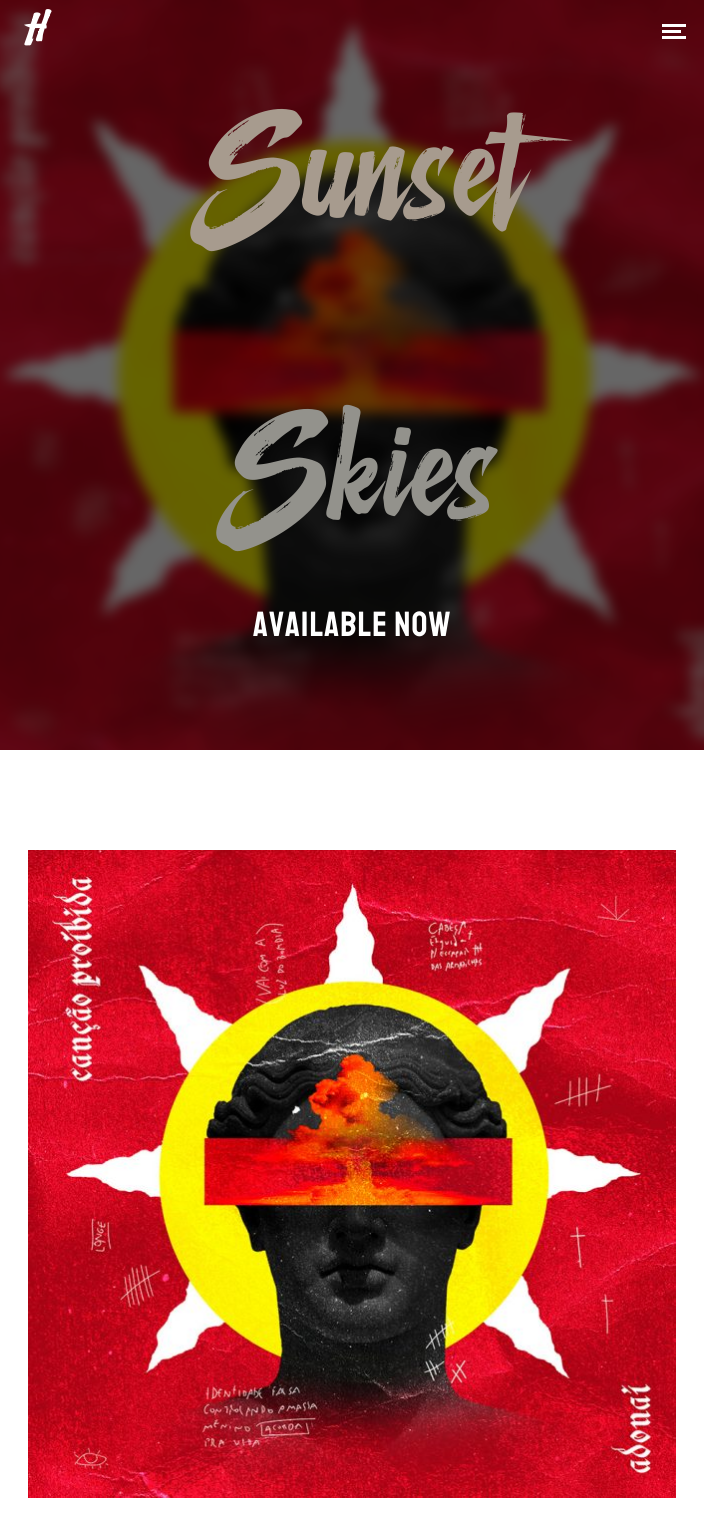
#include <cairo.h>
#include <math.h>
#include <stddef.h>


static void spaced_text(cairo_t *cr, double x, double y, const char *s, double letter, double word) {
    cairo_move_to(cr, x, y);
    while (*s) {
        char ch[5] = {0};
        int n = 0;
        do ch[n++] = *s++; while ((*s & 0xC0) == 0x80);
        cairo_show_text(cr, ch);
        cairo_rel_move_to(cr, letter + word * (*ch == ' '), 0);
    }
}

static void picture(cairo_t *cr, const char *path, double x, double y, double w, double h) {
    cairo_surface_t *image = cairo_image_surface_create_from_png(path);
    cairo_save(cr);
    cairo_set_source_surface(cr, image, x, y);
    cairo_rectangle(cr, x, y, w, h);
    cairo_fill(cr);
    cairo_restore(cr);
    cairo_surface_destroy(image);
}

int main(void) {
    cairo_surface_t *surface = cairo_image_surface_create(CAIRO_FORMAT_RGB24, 704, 1532);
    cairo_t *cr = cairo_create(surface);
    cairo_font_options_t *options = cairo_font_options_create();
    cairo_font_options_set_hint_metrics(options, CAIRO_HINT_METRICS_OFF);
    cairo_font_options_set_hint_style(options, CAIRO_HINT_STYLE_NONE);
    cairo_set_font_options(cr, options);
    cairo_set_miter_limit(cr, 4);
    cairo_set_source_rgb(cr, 1, 1, 1);
    cairo_paint(cr);
    picture(cr, "img1.png", 0, 0, 704, 750);
    cairo_select_font_face(cr, "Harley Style", CAIRO_FONT_SLANT_NORMAL, CAIRO_FONT_WEIGHT_BOLD);
    cairo_set_font_size(cr, 40);
    cairo_set_source_rgb(cr, 1, 1, 1);
    spaced_text(cr, 24, 38, "H", 1, 0);
    cairo_rectangle(cr, 662, 24, 24, 3);
    cairo_fill(cr);
    cairo_rectangle(cr, 662, 30, 19, 3);
    cairo_fill(cr);
    cairo_rectangle(cr, 662, 36, 24, 3);
    cairo_fill(cr);
    cairo_select_font_face(cr, "Harley Style", CAIRO_FONT_SLANT_NORMAL, CAIRO_FONT_WEIGHT_NORMAL);
    cairo_set_font_size(cr, 200);
    cairo_set_source_rgb(cr, 0.655, 0.608, 0.557);
    spaced_text(cr, 185, 219, "Sunset", 1, 0);
    cairo_set_source_rgb(cr, 0.576, 0.573, 0.549);
    spaced_text(cr, 211, 519, "Skies", 1, 0);
    cairo_select_font_face(cr, "Staatliches", CAIRO_FONT_SLANT_NORMAL, CAIRO_FONT_WEIGHT_NORMAL);
    cairo_set_font_size(cr, 35);
    cairo_set_source_rgb(cr, 1, 1, 1);
    spaced_text(cr, 253, 636, "AVAILABLE NOW", 1, 0);
    picture(cr, "img2.png", 28, 850, 648, 648);
    cairo_surface_write_to_png(surface, "page.png");
    cairo_font_options_destroy(options);
    cairo_destroy(cr);
    cairo_surface_destroy(surface);
    return 0;
}
